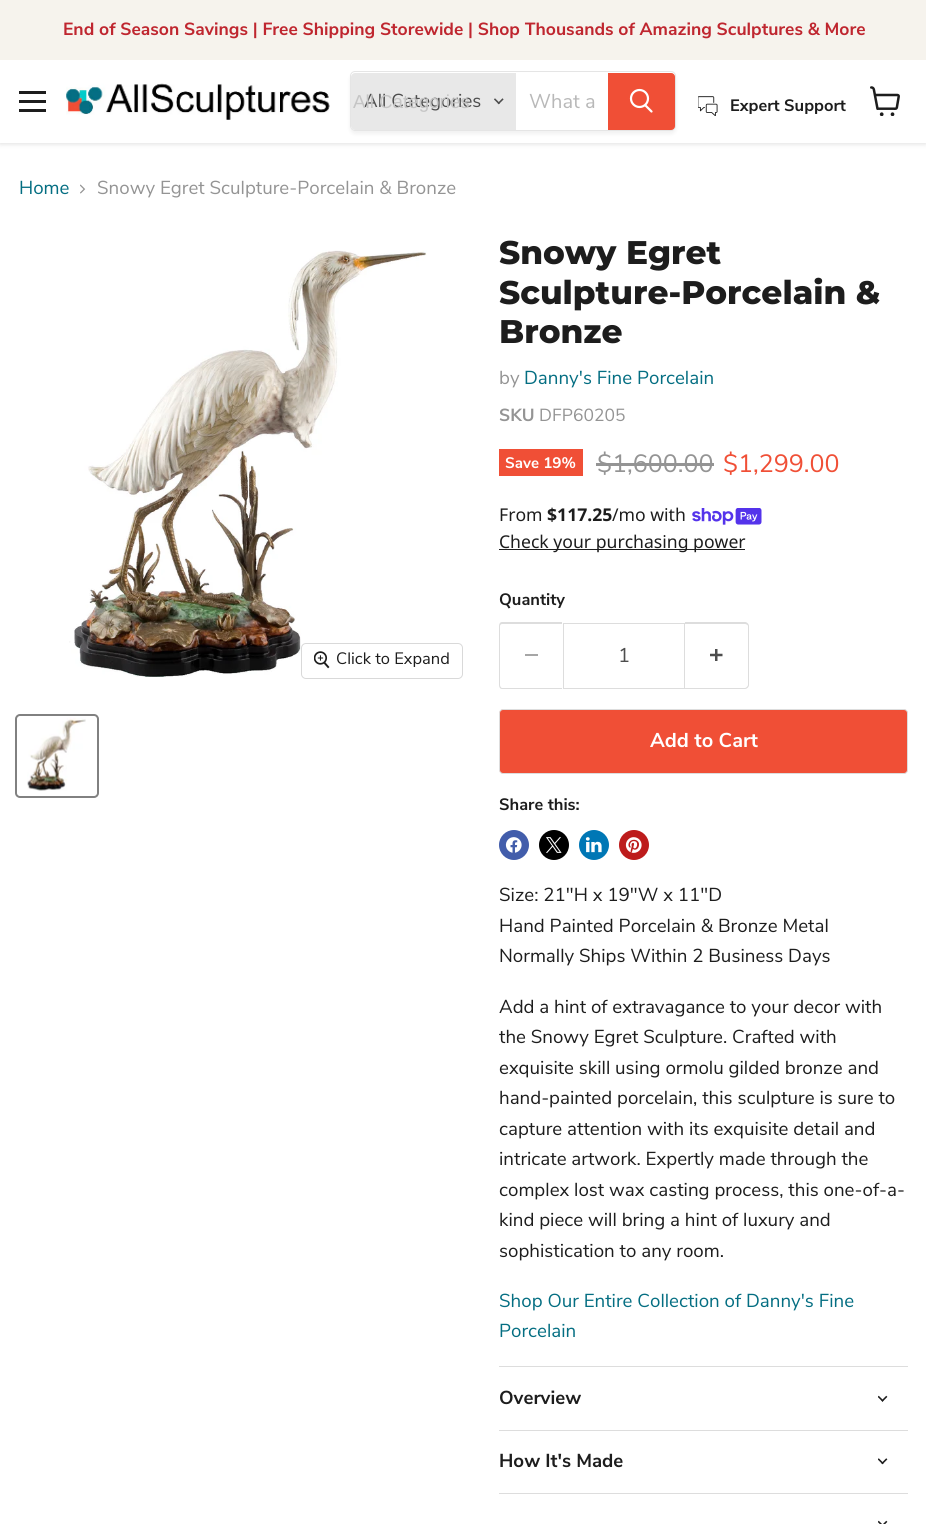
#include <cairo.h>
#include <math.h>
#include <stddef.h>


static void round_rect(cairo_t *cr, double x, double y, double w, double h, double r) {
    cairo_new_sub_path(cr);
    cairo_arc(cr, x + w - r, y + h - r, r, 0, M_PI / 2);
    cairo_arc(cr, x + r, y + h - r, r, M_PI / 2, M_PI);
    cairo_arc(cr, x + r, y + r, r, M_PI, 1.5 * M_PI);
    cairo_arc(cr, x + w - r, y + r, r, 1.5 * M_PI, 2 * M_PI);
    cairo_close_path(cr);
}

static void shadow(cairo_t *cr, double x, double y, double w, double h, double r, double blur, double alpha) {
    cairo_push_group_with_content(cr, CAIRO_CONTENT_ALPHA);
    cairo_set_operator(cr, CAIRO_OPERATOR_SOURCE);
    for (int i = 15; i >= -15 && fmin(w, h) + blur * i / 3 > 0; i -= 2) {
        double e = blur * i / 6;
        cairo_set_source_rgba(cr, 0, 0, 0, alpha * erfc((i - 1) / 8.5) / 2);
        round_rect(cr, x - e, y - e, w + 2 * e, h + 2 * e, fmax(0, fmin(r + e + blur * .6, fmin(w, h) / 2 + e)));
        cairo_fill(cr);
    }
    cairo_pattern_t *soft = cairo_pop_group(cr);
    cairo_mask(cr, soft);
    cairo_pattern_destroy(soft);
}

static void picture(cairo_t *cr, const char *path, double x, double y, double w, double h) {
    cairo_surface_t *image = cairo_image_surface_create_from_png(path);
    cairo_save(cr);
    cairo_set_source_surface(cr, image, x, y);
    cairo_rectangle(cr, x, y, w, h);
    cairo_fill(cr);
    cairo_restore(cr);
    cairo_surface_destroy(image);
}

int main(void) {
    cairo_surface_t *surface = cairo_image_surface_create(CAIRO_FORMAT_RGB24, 926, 1524);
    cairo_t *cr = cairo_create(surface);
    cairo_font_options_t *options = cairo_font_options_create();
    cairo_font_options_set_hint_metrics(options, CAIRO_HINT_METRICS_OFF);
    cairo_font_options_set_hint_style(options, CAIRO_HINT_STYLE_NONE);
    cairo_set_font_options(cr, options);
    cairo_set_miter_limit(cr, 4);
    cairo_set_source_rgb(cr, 1, 1, 1);
    cairo_paint(cr);
    cairo_set_source_rgb(cr, 0.502, 0.502, 0.502);
    shadow(cr, 0, 61, 926, 83, 0, 2.5, 0.25);
    cairo_set_source_rgb(cr, 0.961, 0.953, 0.929);
    cairo_rectangle(cr, 0, 0, 926, 60);
    cairo_fill(cr);
    cairo_select_font_face(cr, "Nunito Sans", CAIRO_FONT_SLANT_NORMAL, CAIRO_FONT_WEIGHT_BOLD);
    cairo_set_font_size(cr, 17.6);
    cairo_set_source_rgb(cr, 0.749, 0.149, 0.184);
    cairo_move_to(cr, 63, 35);
    cairo_show_text(cr, "End of Season Savings | Free Shipping Storewide | Shop Thousands of Amazing Sculptures & More");
    cairo_set_source_rgb(cr, 1, 1, 1);
    cairo_rectangle(cr, 0, 60, 926, 83);
    cairo_fill(cr);
    cairo_set_source_rgb(cr, 0.114, 0.114, 0.114);
    cairo_rectangle(cr, 19, 91, 27, 3);
    cairo_fill(cr);
    cairo_rectangle(cr, 19, 100, 27, 3);
    cairo_fill(cr);
    cairo_rectangle(cr, 19, 109, 27, 3);
    cairo_fill(cr);
    picture(cr, "img1.png", 66, 83, 264, 37);
    cairo_save(cr);
    cairo_set_fill_rule(cr, CAIRO_FILL_RULE_EVEN_ODD);
    cairo_new_path(cr);
    cairo_move_to(cr, 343, 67);
    cairo_line_to(cr, 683, 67);
    cairo_line_to(cr, 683, 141);
    cairo_line_to(cr, 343, 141);
    cairo_close_path(cr);
    cairo_move_to(cr, 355, 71);
    cairo_line_to(cr, 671, 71);
    cairo_curve_to(cr, 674, 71, 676, 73, 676, 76);
    cairo_line_to(cr, 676, 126);
    cairo_curve_to(cr, 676, 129, 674, 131, 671, 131);
    cairo_line_to(cr, 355, 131);
    cairo_curve_to(cr, 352, 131, 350, 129, 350, 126);
    cairo_line_to(cr, 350, 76);
    cairo_curve_to(cr, 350, 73, 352, 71, 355, 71);
    cairo_close_path(cr);
    cairo_clip(cr);
    cairo_set_source_rgb(cr, 0.502, 0.502, 0.502);
    shadow(cr, 350, 74, 326, 60, 5, 2, 0.11);
    cairo_restore(cr);
    round_rect(cr, 350.5, 71.5, 325, 59, 4.5);
    cairo_set_source_rgba(cr, 0.502, 0.502, 0.502, 0.2);
    cairo_set_line_width(cr, 1);
    cairo_stroke(cr);
    cairo_set_source_rgb(cr, 0.91, 0.91, 0.91);
    cairo_new_path(cr);
    cairo_move_to(cr, 355, 73);
    cairo_line_to(cr, 516, 73);
    cairo_line_to(cr, 516, 130);
    cairo_line_to(cr, 355, 130);
    cairo_curve_to(cr, 353, 130, 351, 128, 351, 126);
    cairo_line_to(cr, 351, 77);
    cairo_curve_to(cr, 351, 75, 353, 73, 355, 73);
    cairo_close_path(cr);
    cairo_fill(cr);
    cairo_select_font_face(cr, "Nunito Sans", CAIRO_FONT_SLANT_NORMAL, CAIRO_FONT_WEIGHT_NORMAL);
    cairo_set_font_size(cr, 18.75);
    cairo_set_source_rgb(cr, 0.302, 0.302, 0.302);
    cairo_move_to(cr, 364, 107);
    cairo_show_text(cr, "All Categories");
    cairo_select_font_face(cr, "Liberation Sans", CAIRO_FONT_SLANT_NORMAL, CAIRO_FONT_WEIGHT_NORMAL);
    cairo_set_source_rgb(cr, 0.773, 0.773, 0.773);
    cairo_move_to(cr, 353, 108);
    cairo_show_text(cr, "All Categories");
    picture(cr, "img2.png", 494, 98, 10, 7);
    cairo_select_font_face(cr, "Nunito Sans", CAIRO_FONT_SLANT_NORMAL, CAIRO_FONT_WEIGHT_NORMAL);
    cairo_set_font_size(cr, 20);
    cairo_set_source_rgb(cr, 0.722, 0.722, 0.722);
    cairo_move_to(cr, 529, 108);
    cairo_show_text(cr, "What a");
    cairo_set_source_rgb(cr, 0.941, 0.31, 0.212);
    cairo_new_path(cr);
    cairo_move_to(cr, 608.5, 73.5);
    cairo_line_to(cr, 671, 73.5);
    cairo_curve_to(cr, 673, 73.5, 674.5, 75, 674.5, 77);
    cairo_line_to(cr, 674.5, 126);
    cairo_curve_to(cr, 674.5, 128, 673, 129.5, 671, 129.5);
    cairo_line_to(cr, 608.5, 129.5);
    cairo_close_path(cr);
    cairo_fill_preserve(cr);
    cairo_stroke(cr);
    cairo_new_path(cr);
    cairo_move_to(cr, 651.5, 111.5);
    cairo_line_to(cr, 645.5, 105.5);
    cairo_set_source_rgb(cr, 1, 1, 1);
    cairo_set_line_width(cr, 2.2);
    cairo_set_line_cap(cr, CAIRO_LINE_CAP_ROUND);
    cairo_stroke(cr);
    cairo_arc(cr, 639.5, 98.5, 8.5, 0, 2 * M_PI);
    cairo_set_line_cap(cr, CAIRO_LINE_CAP_BUTT);
    cairo_stroke(cr);
    picture(cr, "img3.png", 698, 96, 20, 20);
    cairo_select_font_face(cr, "Nunito Sans", CAIRO_FONT_SLANT_NORMAL, CAIRO_FONT_WEIGHT_BOLD);
    cairo_set_font_size(cr, 16.5);
    cairo_set_source_rgb(cr, 0.114, 0.114, 0.114);
    cairo_move_to(cr, 730, 111);
    cairo_show_text(cr, "Expert Support");
    picture(cr, "img4.png", 870, 86, 30, 30);
    cairo_select_font_face(cr, "Nunito Sans", CAIRO_FONT_SLANT_NORMAL, CAIRO_FONT_WEIGHT_NORMAL);
    cairo_set_font_size(cr, 18.75);
    cairo_set_source_rgb(cr, 0.016, 0.431, 0.51);
    cairo_move_to(cr, 19, 194);
    cairo_show_text(cr, "Home");
    picture(cr, "img5.png", 80, 184, 6, 10);
    cairo_set_source_rgb(cr, 0.58, 0.58, 0.58);
    cairo_move_to(cr, 97, 194);
    cairo_show_text(cr, "Snowy Egret Sculpture-Porcelain & Bronze");
    picture(cr, "img6.png", 69, 250, 358, 427);
    round_rect(cr, 301.5, 643.5, 161, 35, 4.5);
    cairo_set_source_rgb(cr, 0.851, 0.851, 0.851);
    cairo_set_line_width(cr, 1);
    cairo_stroke(cr);
    picture(cr, "img7.png", 314, 651, 16, 18);
    cairo_set_font_size(cr, 16.5);
    cairo_set_source_rgb(cr, 0.114, 0.114, 0.114);
    cairo_move_to(cr, 336, 664);
    cairo_show_text(cr, "Click to Expand");
    round_rect(cr, 16, 715, 82, 82, 4);
    cairo_set_source_rgb(cr, 0.506, 0.506, 0.506);
    cairo_set_line_width(cr, 2);
    cairo_stroke(cr);
    picture(cr, "img8.png", 27, 717, 59, 74);
    cairo_select_font_face(cr, "Montserrat ExtraBold", CAIRO_FONT_SLANT_NORMAL, CAIRO_FONT_WEIGHT_NORMAL);
    cairo_set_font_size(cr, 32.75);
    cairo_set_source_rgb(cr, 0.114, 0.114, 0.114);
    cairo_move_to(cr, 499, 264);
    cairo_show_text(cr, "Snowy Egret");
    cairo_move_to(cr, 499, 304);
    cairo_show_text(cr, "Sculpture-Porcelain &");
    cairo_move_to(cr, 499, 343);
    cairo_show_text(cr, "Bronze");
    cairo_select_font_face(cr, "Nunito Sans", CAIRO_FONT_SLANT_NORMAL, CAIRO_FONT_WEIGHT_NORMAL);
    cairo_set_font_size(cr, 18.75);
    cairo_set_source_rgb(cr, 0.58, 0.58, 0.58);
    cairo_move_to(cr, 499, 384);
    cairo_show_text(cr, "by");
    cairo_set_source_rgb(cr, 0.016, 0.431, 0.51);
    cairo_move_to(cr, 524, 384);
    cairo_show_text(cr, "Danny's Fine Porcelain");
    cairo_select_font_face(cr, "Nunito Sans", CAIRO_FONT_SLANT_NORMAL, CAIRO_FONT_WEIGHT_BOLD);
    cairo_set_font_size(cr, 17.5);
    cairo_set_source_rgb(cr, 0.58, 0.58, 0.58);
    cairo_move_to(cr, 499, 421);
    cairo_show_text(cr, "SKU");
    cairo_select_font_face(cr, "Nunito Sans", CAIRO_FONT_SLANT_NORMAL, CAIRO_FONT_WEIGHT_NORMAL);
    cairo_move_to(cr, 539, 421);
    cairo_show_text(cr, "DFP60205");
    cairo_set_source_rgb(cr, 0.941, 0.31, 0.212);
    cairo_rectangle(cr, 499, 449, 84, 27);
    cairo_fill(cr);
    cairo_select_font_face(cr, "Nunito Sans", CAIRO_FONT_SLANT_NORMAL, CAIRO_FONT_WEIGHT_BOLD);
    cairo_set_font_size(cr, 15.25);
    cairo_set_source_rgb(cr, 1, 1, 1);
    cairo_move_to(cr, 505, 468);
    cairo_show_text(cr, "Save 19%");
    cairo_select_font_face(cr, "Nunito Sans", CAIRO_FONT_SLANT_NORMAL, CAIRO_FONT_WEIGHT_NORMAL);
    cairo_set_font_size(cr, 25);
    cairo_set_source_rgb(cr, 0.58, 0.58, 0.58);
    cairo_move_to(cr, 597, 472);
    cairo_show_text(cr, "$1,600.00");
    cairo_rectangle(cr, 596, 463, 118, 3);
    cairo_fill(cr);
    cairo_set_source_rgb(cr, 0.941, 0.31, 0.212);
    cairo_move_to(cr, 723, 472);
    cairo_show_text(cr, "$1,299.00");
    cairo_select_font_face(cr, "Noto Sans", CAIRO_FONT_SLANT_NORMAL, CAIRO_FONT_WEIGHT_NORMAL);
    cairo_set_font_size(cr, 17.6);
    cairo_set_source_rgb(cr, 0.114, 0.114, 0.114);
    cairo_move_to(cr, 499, 521);
    cairo_show_text(cr, "From");
    cairo_select_font_face(cr, "Noto Sans", CAIRO_FONT_SLANT_NORMAL, CAIRO_FONT_WEIGHT_BOLD);
    cairo_move_to(cr, 547, 521);
    cairo_show_text(cr, "$117.25");
    cairo_select_font_face(cr, "Noto Sans", CAIRO_FONT_SLANT_NORMAL, CAIRO_FONT_WEIGHT_NORMAL);
    cairo_move_to(cr, 612, 521);
    cairo_show_text(cr, "/mo with");
    picture(cr, "img9.png", 692, 508, 70, 17);
    cairo_rectangle(cr, 499, 549, 246, 1);
    cairo_fill(cr);
    cairo_move_to(cr, 499, 548);
    cairo_show_text(cr, "Check your purchasing power");
    cairo_select_font_face(cr, "Nunito Sans", CAIRO_FONT_SLANT_NORMAL, CAIRO_FONT_WEIGHT_BOLD);
    cairo_set_font_size(cr, 16.5);
    cairo_move_to(cr, 499, 605);
    cairo_show_text(cr, "Quantity");
    cairo_set_source_rgb(cr, 0.867, 0.867, 0.867);
    cairo_set_fill_rule(cr, CAIRO_FILL_RULE_EVEN_ODD);
    cairo_new_path(cr);
    cairo_move_to(cr, 502, 622);
    cairo_line_to(cr, 562, 622);
    cairo_line_to(cr, 562, 689);
    cairo_line_to(cr, 502, 689);
    cairo_curve_to(cr, 500, 689, 499, 687, 499, 685);
    cairo_line_to(cr, 499, 626);
    cairo_curve_to(cr, 499, 624, 500, 622, 502, 622);
    cairo_close_path(cr);
    cairo_move_to(cr, 502, 624);
    cairo_line_to(cr, 562, 624);
    cairo_line_to(cr, 562, 688);
    cairo_line_to(cr, 502, 688);
    cairo_curve_to(cr, 501, 688, 500, 686, 500, 685);
    cairo_line_to(cr, 500, 626);
    cairo_curve_to(cr, 500, 625, 501, 624, 502, 624);
    cairo_close_path(cr);
    cairo_fill(cr);
    cairo_set_source_rgb(cr, 0.651, 0.651, 0.651);
    cairo_rectangle(cr, 525, 654, 13, 2);
    cairo_fill(cr);
    cairo_rectangle(cr, 563.5, 623.5, 121, 65);
    cairo_set_source_rgb(cr, 0.867, 0.867, 0.867);
    cairo_set_line_width(cr, 1);
    cairo_stroke(cr);
    cairo_select_font_face(cr, "Nunito Sans", CAIRO_FONT_SLANT_NORMAL, CAIRO_FONT_WEIGHT_NORMAL);
    cairo_set_font_size(cr, 20);
    cairo_set_source_rgb(cr, 0.302, 0.302, 0.302);
    cairo_move_to(cr, 618, 662);
    cairo_show_text(cr, "1");
    cairo_set_source_rgb(cr, 0.867, 0.867, 0.867);
    cairo_new_path(cr);
    cairo_move_to(cr, 685, 622);
    cairo_line_to(cr, 745, 622);
    cairo_curve_to(cr, 747, 622, 749, 624, 749, 626);
    cairo_line_to(cr, 749, 685);
    cairo_curve_to(cr, 749, 687, 747, 689, 745, 689);
    cairo_line_to(cr, 685, 689);
    cairo_close_path(cr);
    cairo_move_to(cr, 685, 624);
    cairo_line_to(cr, 745, 624);
    cairo_curve_to(cr, 746, 624, 748, 625, 748, 626);
    cairo_line_to(cr, 748, 685);
    cairo_curve_to(cr, 748, 686, 746, 688, 745, 688);
    cairo_line_to(cr, 685, 688);
    cairo_close_path(cr);
    cairo_fill(cr);
    picture(cr, "img10.png", 710, 649, 13, 12);
    cairo_set_source_rgb(cr, 0.941, 0.31, 0.212);
    round_rect(cr, 499.5, 709.5, 408, 64, 3.5);
    cairo_fill_preserve(cr);
    cairo_set_source_rgb(cr, 0.867, 0.867, 0.867);
    cairo_stroke(cr);
    cairo_select_font_face(cr, "Nunito Sans", CAIRO_FONT_SLANT_NORMAL, CAIRO_FONT_WEIGHT_BOLD);
    cairo_set_source_rgb(cr, 1, 1, 1);
    cairo_move_to(cr, 650, 747);
    cairo_show_text(cr, "Add to Cart");
    cairo_set_font_size(cr, 16.5);
    cairo_set_source_rgb(cr, 0.114, 0.114, 0.114);
    cairo_move_to(cr, 499, 810);
    cairo_show_text(cr, "Share this:");
    cairo_set_source_rgb(cr, 0.259, 0.365, 0.671);
    cairo_new_path(cr);
    cairo_arc(cr, 514, 845, 15, 0, 2 * M_PI);
    cairo_fill(cr);
    picture(cr, "img11.png", 505, 837, 17, 16);
    cairo_set_source_rgb(cr, 0, 0, 0);
    cairo_arc(cr, 554, 845, 15, 0, 2 * M_PI);
    cairo_fill(cr);
    picture(cr, "img12.png", 546, 837, 16, 16);
    cairo_set_source_rgb(cr, 0, 0.467, 0.71);
    cairo_arc(cr, 594, 845, 15, 0, 2 * M_PI);
    cairo_fill(cr);
    picture(cr, "img13.png", 585, 837, 17, 16);
    cairo_set_source_rgb(cr, 0.741, 0.11, 0.11);
    cairo_arc(cr, 634, 845, 15, 0, 2 * M_PI);
    cairo_fill(cr);
    picture(cr, "img14.png", 625, 837, 17, 16);
    cairo_select_font_face(cr, "Nunito Sans", CAIRO_FONT_SLANT_NORMAL, CAIRO_FONT_WEIGHT_NORMAL);
    cairo_set_font_size(cr, 18.75);
    cairo_set_source_rgb(cr, 0.114, 0.114, 0.114);
    cairo_move_to(cr, 499, 901);
    cairo_show_text(cr, "Size: 21\"H x 19\"W x 11\"D");
    cairo_move_to(cr, 499, 932);
    cairo_show_text(cr, "Hand Painted Porcelain & Bronze Metal");
    cairo_move_to(cr, 499, 962);
    cairo_show_text(cr, "Normally Ships Within 2 Business Days");
    cairo_move_to(cr, 499, 1013);
    cairo_show_text(cr, "Add a hint of extravagance to your decor with");
    cairo_move_to(cr, 499, 1043);
    cairo_show_text(cr, "the Snowy Egret Sculpture. Crafted with");
    cairo_move_to(cr, 499, 1074);
    cairo_show_text(cr, "exquisite skill using ormolu gilded bronze and");
    cairo_move_to(cr, 499, 1104);
    cairo_show_text(cr, "hand-painted porcelain, this sculpture is sure to");
    cairo_move_to(cr, 499, 1135);
    cairo_show_text(cr, "capture attention with its exquisite detail and");
    cairo_move_to(cr, 499, 1165);
    cairo_show_text(cr, "intricate artwork. Expertly made through the");
    cairo_move_to(cr, 499, 1196);
    cairo_show_text(cr, "complex lost wax casting process, this one-of-a-");
    cairo_move_to(cr, 499, 1226);
    cairo_show_text(cr, "kind piece will bring a hint of luxury and");
    cairo_move_to(cr, 499, 1257);
    cairo_show_text(cr, "sophistication to any room.");
    cairo_set_source_rgb(cr, 0.016, 0.431, 0.51);
    cairo_move_to(cr, 499, 1307);
    cairo_show_text(cr, "Shop Our Entire Collection of Danny's Fine");
    cairo_move_to(cr, 499, 1337);
    cairo_show_text(cr, "Porcelain");
    cairo_set_source_rgb(cr, 0.867, 0.867, 0.867);
    cairo_rectangle(cr, 499, 1366, 409, 1);
    cairo_fill(cr);
    cairo_rectangle(cr, 499, 1430, 409, 1);
    cairo_fill(cr);
    cairo_select_font_face(cr, "Nunito Sans", CAIRO_FONT_SLANT_NORMAL, CAIRO_FONT_WEIGHT_BOLD);
    cairo_set_source_rgb(cr, 0.114, 0.114, 0.114);
    cairo_move_to(cr, 499, 1404);
    cairo_show_text(cr, "Overview");
    picture(cr, "img15.png", 878, 1395, 10, 7);
    cairo_set_source_rgb(cr, 0.867, 0.867, 0.867);
    cairo_rectangle(cr, 499, 1493, 409, 1);
    cairo_fill(cr);
    cairo_set_source_rgb(cr, 0.114, 0.114, 0.114);
    cairo_move_to(cr, 499, 1467);
    cairo_show_text(cr, "How It's Made");
    picture(cr, "img16.png", 878, 1458, 10, 7);
    picture(cr, "img17.png", 878, 1520, 10, 4);
    cairo_surface_write_to_png(surface, "page.png");
    cairo_font_options_destroy(options);
    cairo_destroy(cr);
    cairo_surface_destroy(surface);
    return 0;
}
